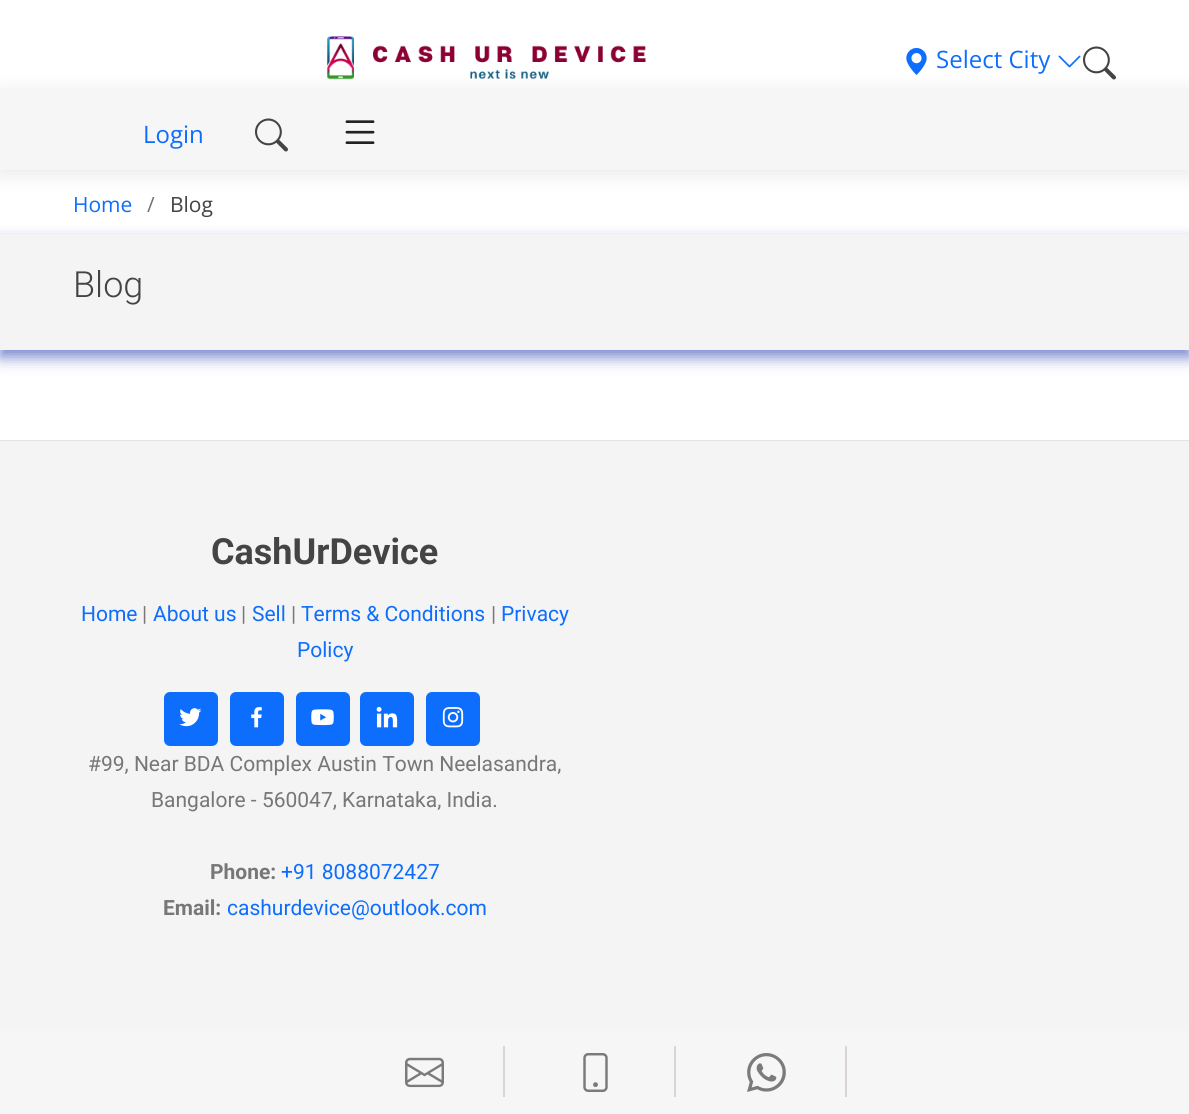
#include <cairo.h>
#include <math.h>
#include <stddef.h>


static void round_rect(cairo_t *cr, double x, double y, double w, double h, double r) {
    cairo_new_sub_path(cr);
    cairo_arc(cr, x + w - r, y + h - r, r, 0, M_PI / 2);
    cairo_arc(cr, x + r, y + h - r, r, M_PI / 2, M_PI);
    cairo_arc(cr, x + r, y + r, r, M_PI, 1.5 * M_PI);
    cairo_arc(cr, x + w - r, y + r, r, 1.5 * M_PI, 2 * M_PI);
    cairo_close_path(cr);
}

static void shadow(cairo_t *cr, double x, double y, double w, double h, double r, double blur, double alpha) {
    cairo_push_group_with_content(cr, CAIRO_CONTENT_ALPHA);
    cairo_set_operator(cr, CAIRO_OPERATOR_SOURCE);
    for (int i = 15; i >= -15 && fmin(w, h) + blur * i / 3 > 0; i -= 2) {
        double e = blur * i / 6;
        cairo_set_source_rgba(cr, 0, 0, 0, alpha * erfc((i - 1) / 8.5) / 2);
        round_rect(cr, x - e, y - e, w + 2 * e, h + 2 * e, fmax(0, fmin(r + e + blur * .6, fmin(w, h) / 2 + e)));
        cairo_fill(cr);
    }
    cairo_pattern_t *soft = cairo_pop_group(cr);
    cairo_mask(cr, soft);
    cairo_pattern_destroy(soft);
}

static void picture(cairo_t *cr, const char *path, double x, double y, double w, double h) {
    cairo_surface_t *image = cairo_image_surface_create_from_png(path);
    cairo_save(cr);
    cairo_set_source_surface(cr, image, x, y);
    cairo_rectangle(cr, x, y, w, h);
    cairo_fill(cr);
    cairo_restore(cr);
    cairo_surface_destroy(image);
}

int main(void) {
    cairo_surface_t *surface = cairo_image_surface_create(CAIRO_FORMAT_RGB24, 1189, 1114);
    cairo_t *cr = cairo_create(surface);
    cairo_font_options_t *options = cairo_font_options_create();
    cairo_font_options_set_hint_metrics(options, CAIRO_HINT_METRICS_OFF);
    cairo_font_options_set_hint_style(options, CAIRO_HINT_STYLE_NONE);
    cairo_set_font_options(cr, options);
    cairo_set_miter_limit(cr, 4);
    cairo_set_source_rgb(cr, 1, 1, 1);
    cairo_paint(cr);
    picture(cr, "img1.png", 327, 36, 319, 44);
    picture(cr, "img2.png", 906, 48, 21, 27);
    cairo_select_font_face(cr, "Open Sans", CAIRO_FONT_SLANT_NORMAL, CAIRO_FONT_WEIGHT_NORMAL);
    cairo_set_font_size(cr, 24);
    cairo_set_source_rgb(cr, 0.051, 0.431, 0.992);
    cairo_move_to(cr, 936, 68);
    cairo_show_text(cr, "Select City");
    picture(cr, "img3.png", 1058, 55, 23, 13);
    picture(cr, "img4.png", 1083, 46, 33, 34);
    cairo_set_source_rgb(cr, 0, 0, 0);
    shadow(cr, 0, 93, 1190, 80, 0, 11, 0.1);
    cairo_set_source_rgb(cr, 0.961, 0.961, 0.961);
    cairo_rectangle(cr, 0, 90, 1189, 80);
    cairo_fill(cr);
    cairo_set_source_rgb(cr, 0.051, 0.431, 0.992);
    cairo_move_to(cr, 143, 143);
    cairo_show_text(cr, "Login");
    picture(cr, "img5.png", 255, 118, 33, 34);
    picture(cr, "img6.png", 345, 120, 30, 24);
    cairo_set_font_size(cr, 21);
    cairo_move_to(cr, 73, 212);
    cairo_show_text(cr, "Home");
    cairo_set_source_rgb(cr, 0.424, 0.459, 0.49);
    cairo_move_to(cr, 147, 212);
    cairo_show_text(cr, "/");
    cairo_set_source_rgb(cr, 0.267, 0.267, 0.267);
    cairo_move_to(cr, 170, 212);
    cairo_show_text(cr, "Blog");
    cairo_set_source_rgb(cr, 0.224, 0.302, 0.718);
    shadow(cr, 0, 242, 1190, 115, 0, 7.5, 0.7);
    cairo_set_source_rgb(cr, 0.957, 0.957, 0.957);
    cairo_rectangle(cr, 0, 234, 1189, 116);
    cairo_fill(cr);
    cairo_select_font_face(cr, "Roboto Light", CAIRO_FONT_SLANT_NORMAL, CAIRO_FONT_WEIGHT_NORMAL);
    cairo_set_font_size(cr, 36);
    cairo_set_source_rgb(cr, 0.267, 0.267, 0.267);
    cairo_move_to(cr, 73, 297);
    cairo_show_text(cr, "Blog");
    cairo_set_source_rgb(cr, 0.957, 0.957, 0.957);
    cairo_rectangle(cr, 0, 441, 1189, 590);
    cairo_fill(cr);
    cairo_set_source_rgb(cr, 0.89, 0.89, 0.89);
    cairo_rectangle(cr, 0, 440, 1189, 1);
    cairo_fill(cr);
    cairo_select_font_face(cr, "Roboto", CAIRO_FONT_SLANT_NORMAL, CAIRO_FONT_WEIGHT_BOLD);
    cairo_set_source_rgb(cr, 0.267, 0.267, 0.267);
    cairo_move_to(cr, 211, 564);
    cairo_show_text(cr, "CashUrDevice");
    cairo_select_font_face(cr, "Roboto", CAIRO_FONT_SLANT_NORMAL, CAIRO_FONT_WEIGHT_NORMAL);
    cairo_set_font_size(cr, 21);
    cairo_set_source_rgb(cr, 0.051, 0.431, 0.992);
    cairo_move_to(cr, 81, 621);
    cairo_show_text(cr, "Home");
    cairo_set_source_rgb(cr, 0.467, 0.467, 0.467);
    cairo_move_to(cr, 142, 621);
    cairo_show_text(cr, "|");
    cairo_set_source_rgb(cr, 0.051, 0.431, 0.992);
    cairo_move_to(cr, 153, 621);
    cairo_show_text(cr, "About us");
    cairo_set_source_rgb(cr, 0.467, 0.467, 0.467);
    cairo_move_to(cr, 241, 621);
    cairo_show_text(cr, "|");
    cairo_set_source_rgb(cr, 0.051, 0.431, 0.992);
    cairo_move_to(cr, 252, 621);
    cairo_show_text(cr, "Sell");
    cairo_set_source_rgb(cr, 0.467, 0.467, 0.467);
    cairo_move_to(cr, 291, 621);
    cairo_show_text(cr, "|");
    cairo_set_source_rgb(cr, 0.051, 0.431, 0.992);
    cairo_move_to(cr, 301, 621);
    cairo_show_text(cr, "Terms & Conditions");
    cairo_set_source_rgb(cr, 0.467, 0.467, 0.467);
    cairo_move_to(cr, 491, 621);
    cairo_show_text(cr, "|");
    cairo_set_source_rgb(cr, 0.051, 0.431, 0.992);
    cairo_move_to(cr, 501, 621);
    cairo_show_text(cr, "Privacy");
    cairo_move_to(cr, 297, 657);
    cairo_show_text(cr, "Policy");
    round_rect(cr, 164, 692, 54, 54, 6);
    cairo_fill(cr);
    picture(cr, "img7.png", 179, 708, 23, 19);
    round_rect(cr, 230, 692, 54, 54, 6);
    cairo_fill(cr);
    picture(cr, "img8.png", 251, 707, 11, 21);
    round_rect(cr, 296, 692, 54, 54, 6);
    cairo_fill(cr);
    picture(cr, "img9.png", 311, 709, 23, 17);
    round_rect(cr, 360, 692, 54, 54, 6);
    cairo_fill(cr);
    picture(cr, "img10.png", 376, 706, 22, 22);
    round_rect(cr, 426, 692, 54, 54, 6);
    cairo_fill(cr);
    picture(cr, "img11.png", 442, 707, 22, 21);
    cairo_set_source_rgb(cr, 0.467, 0.467, 0.467);
    cairo_move_to(cr, 88, 771);
    cairo_show_text(cr, "#99, Near BDA Complex Austin Town Neelasandra,");
    cairo_move_to(cr, 151, 807);
    cairo_show_text(cr, "Bangalore - 560047, Karnataka, India.");
    cairo_select_font_face(cr, "Roboto", CAIRO_FONT_SLANT_NORMAL, CAIRO_FONT_WEIGHT_BOLD);
    cairo_move_to(cr, 210, 879);
    cairo_show_text(cr, "Phone:");
    cairo_select_font_face(cr, "Roboto", CAIRO_FONT_SLANT_NORMAL, CAIRO_FONT_WEIGHT_NORMAL);
    cairo_set_source_rgb(cr, 0.051, 0.431, 0.992);
    cairo_move_to(cr, 281, 879);
    cairo_show_text(cr, "+91 8088072427");
    cairo_select_font_face(cr, "Roboto", CAIRO_FONT_SLANT_NORMAL, CAIRO_FONT_WEIGHT_BOLD);
    cairo_set_source_rgb(cr, 0.467, 0.467, 0.467);
    cairo_move_to(cr, 163, 915);
    cairo_show_text(cr, "Email:");
    cairo_select_font_face(cr, "Roboto", CAIRO_FONT_SLANT_NORMAL, CAIRO_FONT_WEIGHT_NORMAL);
    cairo_set_source_rgb(cr, 0.051, 0.431, 0.992);
    cairo_move_to(cr, 227, 915);
    cairo_show_text(cr, "cashurdevice@outlook.com");
    cairo_set_source_rgb(cr, 0.961, 0.961, 0.961);
    cairo_rectangle(cr, 0, 1031, 1189, 83);
    cairo_fill(cr);
    picture(cr, "img12.png", 405, 1057, 39, 31);
    cairo_set_source_rgb(cr, 0.855, 0.831, 0.831);
    cairo_rectangle(cr, 503, 1046, 2, 51);
    cairo_fill(cr);
    picture(cr, "img13.png", 583, 1053, 25, 39);
    cairo_rectangle(cr, 674, 1046, 2, 51);
    cairo_fill(cr);
    picture(cr, "img14.png", 747, 1053, 39, 39);
    cairo_rectangle(cr, 845, 1046, 2, 51);
    cairo_fill(cr);
    cairo_surface_write_to_png(surface, "page.png");
    cairo_font_options_destroy(options);
    cairo_destroy(cr);
    cairo_surface_destroy(surface);
    return 0;
}
